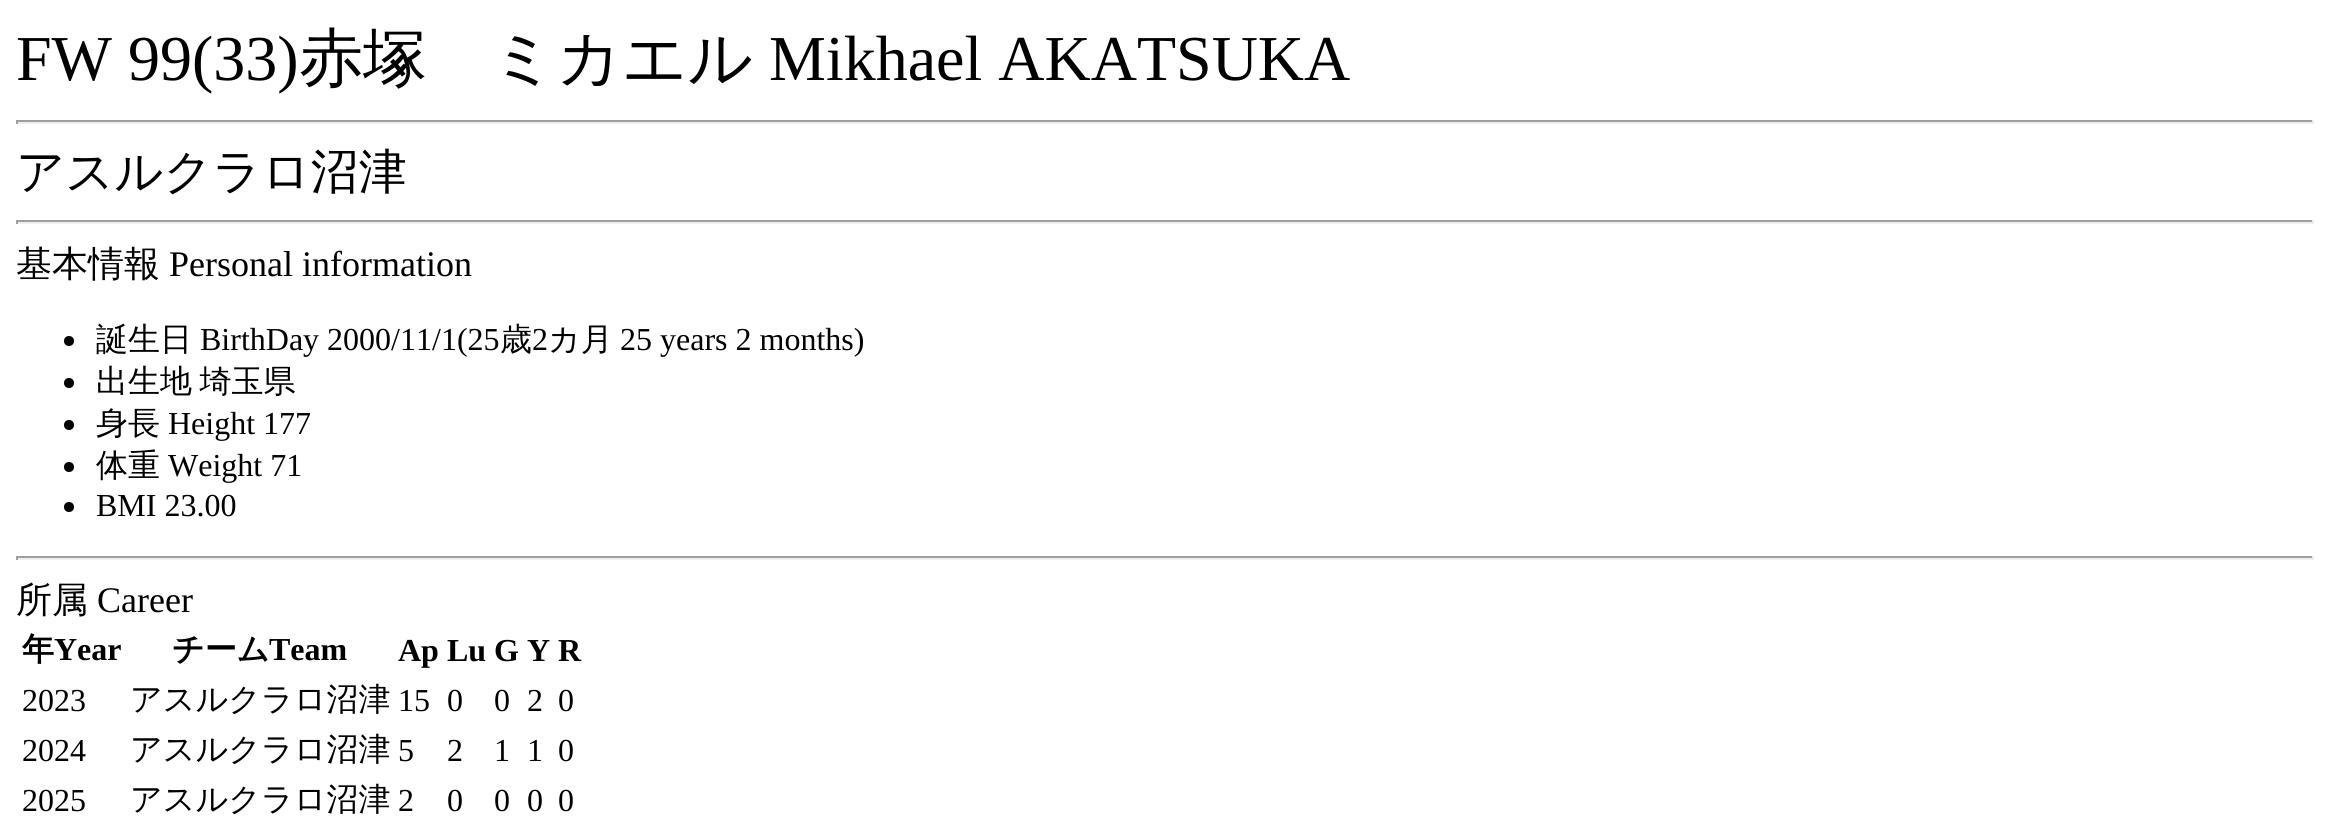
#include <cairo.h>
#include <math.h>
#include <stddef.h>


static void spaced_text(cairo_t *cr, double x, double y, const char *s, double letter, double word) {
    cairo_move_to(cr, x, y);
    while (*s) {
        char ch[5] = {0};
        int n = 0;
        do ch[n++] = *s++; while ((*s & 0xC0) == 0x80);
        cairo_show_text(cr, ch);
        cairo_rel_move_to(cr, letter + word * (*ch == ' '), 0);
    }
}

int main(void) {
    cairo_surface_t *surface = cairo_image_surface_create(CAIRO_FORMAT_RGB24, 2329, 840);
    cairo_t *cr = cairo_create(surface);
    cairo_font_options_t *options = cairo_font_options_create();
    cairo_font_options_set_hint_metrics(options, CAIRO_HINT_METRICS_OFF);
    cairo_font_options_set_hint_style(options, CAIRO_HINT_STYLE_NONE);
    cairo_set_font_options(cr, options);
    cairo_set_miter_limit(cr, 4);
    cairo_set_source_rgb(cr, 1, 1, 1);
    cairo_paint(cr);
    cairo_select_font_face(cr, "Liberation Serif", CAIRO_FONT_SLANT_NORMAL, CAIRO_FONT_WEIGHT_NORMAL);
    cairo_set_font_size(cr, 64);
    cairo_set_source_rgb(cr, 0, 0, 0);
    cairo_move_to(cr, 16, 80);
    cairo_show_text(cr, "FW 99(33)");
    cairo_select_font_face(cr, "WenQuanYi Zen Hei Medium", CAIRO_FONT_SLANT_NORMAL, CAIRO_FONT_WEIGHT_NORMAL);
    cairo_move_to(cr, 299, 80);
    cairo_show_text(cr, "赤塚　ミカエル");
    cairo_select_font_face(cr, "Liberation Serif", CAIRO_FONT_SLANT_NORMAL, CAIRO_FONT_WEIGHT_NORMAL);
    cairo_move_to(cr, 769, 80);
    cairo_show_text(cr, "Mikhael AKATSUKA");
    cairo_set_source_rgb(cr, 0.624, 0.624, 0.624);
    cairo_rectangle(cr, 16, 120, 2298, 2);
    cairo_fill(cr);
    cairo_set_source_rgb(cr, 0.933, 0.933, 0.933);
    cairo_rectangle(cr, 2312, 120, 2, 4);
    cairo_fill(cr);
    cairo_rectangle(cr, 16, 122, 2298, 2);
    cairo_fill(cr);
    cairo_set_source_rgb(cr, 0.624, 0.624, 0.624);
    cairo_rectangle(cr, 16, 120, 2, 4);
    cairo_fill(cr);
    cairo_select_font_face(cr, "WenQuanYi Zen Hei Medium", CAIRO_FONT_SLANT_NORMAL, CAIRO_FONT_WEIGHT_NORMAL);
    cairo_set_font_size(cr, 48);
    cairo_set_source_rgb(cr, 0, 0, 0);
    cairo_move_to(cr, 16, 188);
    cairo_show_text(cr, "アスルクラロ沼津");
    cairo_set_source_rgb(cr, 0.624, 0.624, 0.624);
    cairo_rectangle(cr, 16, 220, 2298, 2);
    cairo_fill(cr);
    cairo_set_source_rgb(cr, 0.933, 0.933, 0.933);
    cairo_rectangle(cr, 2312, 220, 2, 4);
    cairo_fill(cr);
    cairo_rectangle(cr, 16, 222, 2298, 2);
    cairo_fill(cr);
    cairo_set_source_rgb(cr, 0.624, 0.624, 0.624);
    cairo_rectangle(cr, 16, 220, 2, 4);
    cairo_fill(cr);
    cairo_set_font_size(cr, 36);
    cairo_set_source_rgb(cr, 0, 0, 0);
    cairo_move_to(cr, 16, 276);
    cairo_show_text(cr, "基本情報");
    cairo_select_font_face(cr, "Liberation Serif", CAIRO_FONT_SLANT_NORMAL, CAIRO_FONT_WEIGHT_NORMAL);
    cairo_move_to(cr, 169, 276);
    cairo_show_text(cr, "Personal information");
    cairo_new_path(cr);
    cairo_arc(cr, 69, 341, 5, 0, 2 * M_PI);
    cairo_fill(cr);
    cairo_select_font_face(cr, "WenQuanYi Zen Hei Medium", CAIRO_FONT_SLANT_NORMAL, CAIRO_FONT_WEIGHT_NORMAL);
    cairo_set_font_size(cr, 32);
    cairo_move_to(cr, 96, 350);
    cairo_show_text(cr, "誕生日");
    cairo_select_font_face(cr, "Liberation Serif", CAIRO_FONT_SLANT_NORMAL, CAIRO_FONT_WEIGHT_NORMAL);
    cairo_move_to(cr, 200, 350);
    cairo_show_text(cr, "BirthDay 2000/11/1(25");
    cairo_select_font_face(cr, "WenQuanYi Zen Hei Medium", CAIRO_FONT_SLANT_NORMAL, CAIRO_FONT_WEIGHT_NORMAL);
    cairo_move_to(cr, 500, 350);
    cairo_show_text(cr, "歳");
    cairo_select_font_face(cr, "Liberation Serif", CAIRO_FONT_SLANT_NORMAL, CAIRO_FONT_WEIGHT_NORMAL);
    cairo_move_to(cr, 532, 350);
    cairo_show_text(cr, "2");
    cairo_select_font_face(cr, "WenQuanYi Zen Hei Medium", CAIRO_FONT_SLANT_NORMAL, CAIRO_FONT_WEIGHT_NORMAL);
    cairo_move_to(cr, 548, 350);
    cairo_show_text(cr, "カ月");
    cairo_select_font_face(cr, "Liberation Serif", CAIRO_FONT_SLANT_NORMAL, CAIRO_FONT_WEIGHT_NORMAL);
    cairo_move_to(cr, 620, 350);
    cairo_show_text(cr, "25 years 2 months)");
    cairo_new_path(cr);
    cairo_arc(cr, 69, 383, 5, 0, 2 * M_PI);
    cairo_fill(cr);
    cairo_select_font_face(cr, "WenQuanYi Zen Hei Medium", CAIRO_FONT_SLANT_NORMAL, CAIRO_FONT_WEIGHT_NORMAL);
    spaced_text(cr, 96, 392, "出生地 埼玉県", 0, -2);
    cairo_new_path(cr);
    cairo_arc(cr, 69, 425, 5, 0, 2 * M_PI);
    cairo_fill(cr);
    cairo_move_to(cr, 96, 434);
    cairo_show_text(cr, "身長");
    cairo_select_font_face(cr, "Liberation Serif", CAIRO_FONT_SLANT_NORMAL, CAIRO_FONT_WEIGHT_NORMAL);
    cairo_move_to(cr, 168, 434);
    cairo_show_text(cr, "Height 177");
    cairo_new_path(cr);
    cairo_arc(cr, 69, 467, 5, 0, 2 * M_PI);
    cairo_fill(cr);
    cairo_select_font_face(cr, "WenQuanYi Zen Hei Medium", CAIRO_FONT_SLANT_NORMAL, CAIRO_FONT_WEIGHT_NORMAL);
    cairo_move_to(cr, 96, 476);
    cairo_show_text(cr, "体重");
    cairo_select_font_face(cr, "Liberation Serif", CAIRO_FONT_SLANT_NORMAL, CAIRO_FONT_WEIGHT_NORMAL);
    cairo_move_to(cr, 168, 476);
    cairo_show_text(cr, "Weight 71");
    cairo_new_path(cr);
    cairo_arc(cr, 69, 507, 5, 0, 2 * M_PI);
    cairo_fill(cr);
    cairo_move_to(cr, 96, 516);
    cairo_show_text(cr, "BMI 23.00");
    cairo_set_source_rgb(cr, 0.624, 0.624, 0.624);
    cairo_rectangle(cr, 16, 556, 2298, 2);
    cairo_fill(cr);
    cairo_set_source_rgb(cr, 0.933, 0.933, 0.933);
    cairo_rectangle(cr, 2312, 556, 2, 4);
    cairo_fill(cr);
    cairo_rectangle(cr, 16, 558, 2298, 2);
    cairo_fill(cr);
    cairo_set_source_rgb(cr, 0.624, 0.624, 0.624);
    cairo_rectangle(cr, 16, 556, 2, 4);
    cairo_fill(cr);
    cairo_select_font_face(cr, "WenQuanYi Zen Hei Medium", CAIRO_FONT_SLANT_NORMAL, CAIRO_FONT_WEIGHT_NORMAL);
    cairo_set_font_size(cr, 36);
    cairo_set_source_rgb(cr, 0, 0, 0);
    cairo_move_to(cr, 16, 612);
    cairo_show_text(cr, "所属");
    cairo_select_font_face(cr, "Liberation Serif", CAIRO_FONT_SLANT_NORMAL, CAIRO_FONT_WEIGHT_NORMAL);
    cairo_move_to(cr, 97, 612);
    cairo_show_text(cr, "Career");
    cairo_select_font_face(cr, "WenQuanYi Zen Hei", CAIRO_FONT_SLANT_NORMAL, CAIRO_FONT_WEIGHT_BOLD);
    cairo_set_font_size(cr, 32);
    cairo_move_to(cr, 22, 660);
    cairo_show_text(cr, "年");
    cairo_select_font_face(cr, "Liberation Serif", CAIRO_FONT_SLANT_NORMAL, CAIRO_FONT_WEIGHT_BOLD);
    cairo_move_to(cr, 54, 660);
    cairo_show_text(cr, "Year");
    cairo_select_font_face(cr, "WenQuanYi Zen Hei", CAIRO_FONT_SLANT_NORMAL, CAIRO_FONT_WEIGHT_BOLD);
    cairo_move_to(cr, 172, 660);
    cairo_show_text(cr, "チーム");
    cairo_select_font_face(cr, "Liberation Serif", CAIRO_FONT_SLANT_NORMAL, CAIRO_FONT_WEIGHT_BOLD);
    cairo_move_to(cr, 269, 660);
    cairo_show_text(cr, "Team");
    cairo_move_to(cr, 398, 661);
    cairo_show_text(cr, "Ap Lu G Y R");
    cairo_select_font_face(cr, "Liberation Serif", CAIRO_FONT_SLANT_NORMAL, CAIRO_FONT_WEIGHT_NORMAL);
    cairo_move_to(cr, 22, 711);
    cairo_show_text(cr, "2023");
    cairo_select_font_face(cr, "WenQuanYi Zen Hei Medium", CAIRO_FONT_SLANT_NORMAL, CAIRO_FONT_WEIGHT_NORMAL);
    cairo_move_to(cr, 130, 710);
    cairo_show_text(cr, "アスルクラロ沼津");
    cairo_select_font_face(cr, "Liberation Serif", CAIRO_FONT_SLANT_NORMAL, CAIRO_FONT_WEIGHT_NORMAL);
    cairo_move_to(cr, 398, 711);
    cairo_show_text(cr, "15");
    cairo_move_to(cr, 447, 711);
    cairo_show_text(cr, "0");
    cairo_move_to(cr, 494, 711);
    cairo_show_text(cr, "0");
    cairo_move_to(cr, 527, 711);
    cairo_show_text(cr, "2");
    cairo_move_to(cr, 558, 711);
    cairo_show_text(cr, "0");
    cairo_move_to(cr, 22, 761);
    cairo_show_text(cr, "2024");
    cairo_select_font_face(cr, "WenQuanYi Zen Hei Medium", CAIRO_FONT_SLANT_NORMAL, CAIRO_FONT_WEIGHT_NORMAL);
    cairo_move_to(cr, 130, 760);
    cairo_show_text(cr, "アスルクラロ沼津");
    cairo_select_font_face(cr, "Liberation Serif", CAIRO_FONT_SLANT_NORMAL, CAIRO_FONT_WEIGHT_NORMAL);
    cairo_move_to(cr, 398, 761);
    cairo_show_text(cr, "5");
    cairo_move_to(cr, 447, 761);
    cairo_show_text(cr, "2");
    cairo_move_to(cr, 494, 761);
    cairo_show_text(cr, "1");
    cairo_move_to(cr, 527, 761);
    cairo_show_text(cr, "1");
    cairo_move_to(cr, 558, 761);
    cairo_show_text(cr, "0");
    cairo_move_to(cr, 22, 811);
    cairo_show_text(cr, "2025");
    cairo_select_font_face(cr, "WenQuanYi Zen Hei Medium", CAIRO_FONT_SLANT_NORMAL, CAIRO_FONT_WEIGHT_NORMAL);
    cairo_move_to(cr, 130, 810);
    cairo_show_text(cr, "アスルクラロ沼津");
    cairo_select_font_face(cr, "Liberation Serif", CAIRO_FONT_SLANT_NORMAL, CAIRO_FONT_WEIGHT_NORMAL);
    cairo_move_to(cr, 398, 811);
    cairo_show_text(cr, "2");
    cairo_move_to(cr, 447, 811);
    cairo_show_text(cr, "0");
    cairo_move_to(cr, 494, 811);
    cairo_show_text(cr, "0");
    cairo_move_to(cr, 527, 811);
    cairo_show_text(cr, "0");
    cairo_move_to(cr, 558, 811);
    cairo_show_text(cr, "0");
    cairo_surface_write_to_png(surface, "page.png");
    cairo_font_options_destroy(options);
    cairo_destroy(cr);
    cairo_surface_destroy(surface);
    return 0;
}
